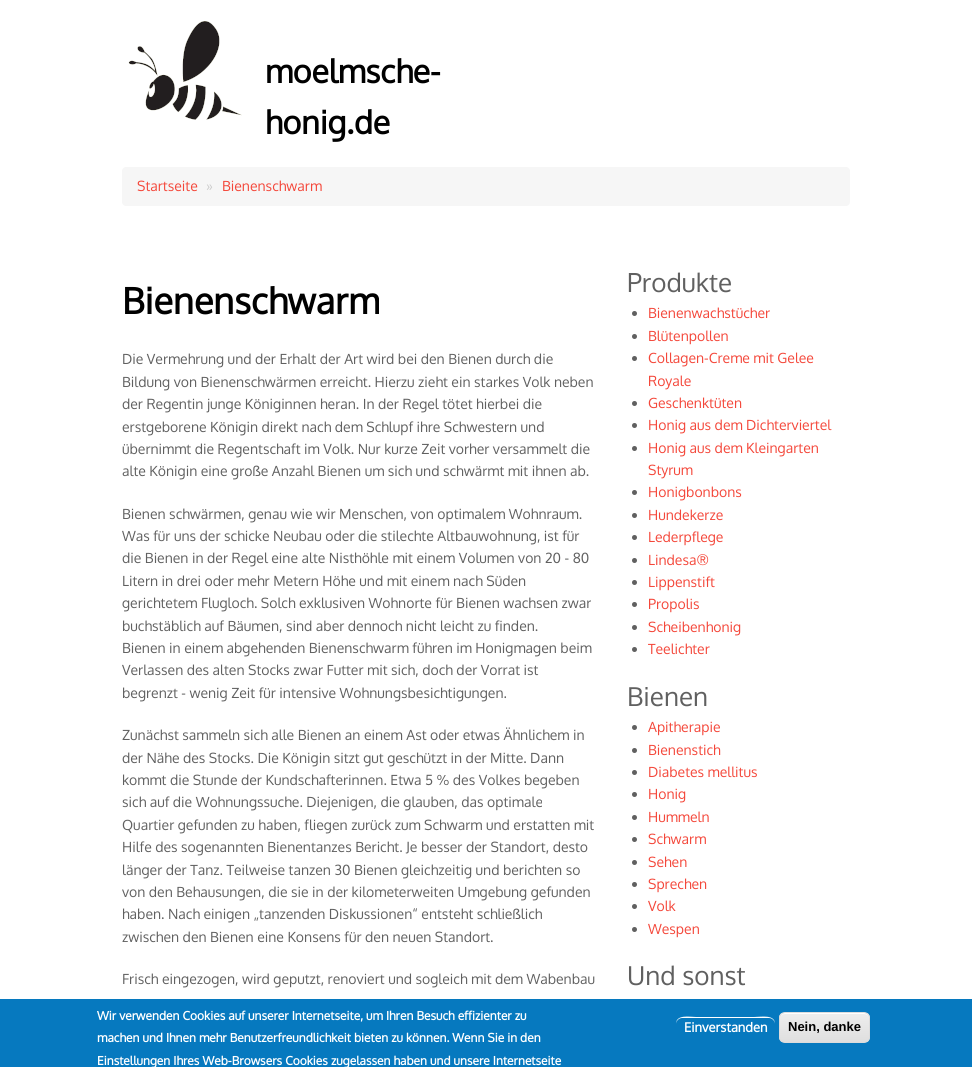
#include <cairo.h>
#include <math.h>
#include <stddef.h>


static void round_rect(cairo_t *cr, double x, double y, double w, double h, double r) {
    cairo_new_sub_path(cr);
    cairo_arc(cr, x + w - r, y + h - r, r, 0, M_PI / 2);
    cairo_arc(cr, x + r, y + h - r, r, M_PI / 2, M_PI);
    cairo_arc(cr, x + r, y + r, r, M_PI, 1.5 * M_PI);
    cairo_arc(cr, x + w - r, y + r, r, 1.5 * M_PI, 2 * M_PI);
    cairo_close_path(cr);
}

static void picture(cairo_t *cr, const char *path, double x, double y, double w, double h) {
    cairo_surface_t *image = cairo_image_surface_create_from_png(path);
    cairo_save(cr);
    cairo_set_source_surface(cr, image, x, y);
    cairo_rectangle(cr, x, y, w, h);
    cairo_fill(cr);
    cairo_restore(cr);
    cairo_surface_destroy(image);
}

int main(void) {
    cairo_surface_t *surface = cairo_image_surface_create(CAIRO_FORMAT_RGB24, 972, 1067);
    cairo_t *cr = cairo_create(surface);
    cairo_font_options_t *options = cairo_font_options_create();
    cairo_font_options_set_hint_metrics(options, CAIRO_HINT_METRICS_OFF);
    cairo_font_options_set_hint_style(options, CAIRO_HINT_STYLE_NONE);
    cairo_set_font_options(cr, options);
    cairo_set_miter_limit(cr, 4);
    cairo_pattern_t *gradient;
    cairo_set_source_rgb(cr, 1, 1, 1);
    cairo_paint(cr);
    picture(cr, "img1.png", 128, 21, 114, 99);
    cairo_select_font_face(cr, "Oxygen", CAIRO_FONT_SLANT_NORMAL, CAIRO_FONT_WEIGHT_BOLD);
    cairo_set_font_size(cr, 32);
    cairo_set_source_rgb(cr, 0, 0, 0);
    cairo_move_to(cr, 265, 83);
    cairo_show_text(cr, "moelmsche-");
    cairo_move_to(cr, 265, 134);
    cairo_show_text(cr, "honig.de");
    cairo_set_source_rgb(cr, 0.961, 0.961, 0.961);
    round_rect(cr, 122, 167, 728, 39, 4);
    cairo_fill(cr);
    cairo_select_font_face(cr, "Oxygen", CAIRO_FONT_SLANT_NORMAL, CAIRO_FONT_WEIGHT_NORMAL);
    cairo_set_font_size(cr, 14);
    cairo_set_source_rgb(cr, 0.957, 0.278, 0.227);
    cairo_move_to(cr, 137, 191);
    cairo_show_text(cr, "Startseite");
    cairo_set_source_rgb(cr, 0.8, 0.8, 0.8);
    cairo_move_to(cr, 206, 191);
    cairo_show_text(cr, "»");
    cairo_set_source_rgb(cr, 0.957, 0.278, 0.227);
    cairo_move_to(cr, 222, 191);
    cairo_show_text(cr, "Bienenschwarm");
    cairo_select_font_face(cr, "Oxygen", CAIRO_FONT_SLANT_NORMAL, CAIRO_FONT_WEIGHT_BOLD);
    cairo_set_font_size(cr, 36);
    cairo_set_source_rgb(cr, 0, 0, 0);
    cairo_move_to(cr, 122, 314);
    cairo_show_text(cr, "Bienenschwarm");
    cairo_select_font_face(cr, "Oxygen", CAIRO_FONT_SLANT_NORMAL, CAIRO_FONT_WEIGHT_NORMAL);
    cairo_set_font_size(cr, 14);
    cairo_set_source_rgb(cr, 0.376, 0.376, 0.376);
    cairo_move_to(cr, 122, 364);
    cairo_show_text(cr, "Die Vermehrung und der Erhalt der Art wird bei den Bienen durch die");
    cairo_move_to(cr, 122, 387);
    cairo_show_text(cr, "Bildung von Bienenschwärmen erreicht. Hierzu zieht ein starkes Volk neben");
    cairo_move_to(cr, 122, 409);
    cairo_show_text(cr, "der Regentin junge Königinnen heran. In der Regel tötet hierbei die");
    cairo_move_to(cr, 122, 432);
    cairo_show_text(cr, "erstgeborene Königin direkt nach dem Schlupf ihre Schwestern und");
    cairo_move_to(cr, 122, 454);
    cairo_show_text(cr, "übernimmt die Regentschaft im Volk. Nur kurze Zeit vorher versammelt die");
    cairo_move_to(cr, 122, 476);
    cairo_show_text(cr, "alte Königin eine große Anzahl Bienen um sich und schwärmt mit ihnen ab.");
    cairo_move_to(cr, 122, 519);
    cairo_show_text(cr, "Bienen schwärmen, genau wie wir Menschen, von optimalem Wohnraum.");
    cairo_move_to(cr, 122, 541);
    cairo_show_text(cr, "Was für uns der schicke Neubau oder die stilechte Altbauwohnung, ist für");
    cairo_move_to(cr, 122, 563);
    cairo_show_text(cr, "die Bienen in der Regel eine alte Nisthöhle mit einem Volumen von 20 - 80");
    cairo_move_to(cr, 122, 586);
    cairo_show_text(cr, "Litern in drei oder mehr Metern Höhe und mit einem nach Süden");
    cairo_move_to(cr, 122, 608);
    cairo_show_text(cr, "gerichtetem Flugloch. Solch exklusiven Wohnorte für Bienen wachsen zwar");
    cairo_move_to(cr, 122, 631);
    cairo_show_text(cr, "buchstäblich auf Bäumen, sind aber dennoch nicht leicht zu finden.");
    cairo_move_to(cr, 122, 653);
    cairo_show_text(cr, "Bienen in einem abgehenden Bienenschwarm führen im Honigmagen beim");
    cairo_move_to(cr, 122, 675);
    cairo_show_text(cr, "Verlassen des alten Stocks zwar Futter mit sich, doch der Vorrat ist");
    cairo_move_to(cr, 122, 698);
    cairo_show_text(cr, "begrenzt - wenig Zeit für intensive Wohnungsbesichtigungen.");
    cairo_move_to(cr, 122, 740);
    cairo_show_text(cr, "Zunächst sammeln sich alle Bienen an einem Ast oder etwas Ähnlichem in");
    cairo_move_to(cr, 122, 763);
    cairo_show_text(cr, "der Nähe des Stocks. Die Königin sitzt gut geschützt in der Mitte. Dann");
    cairo_move_to(cr, 122, 785);
    cairo_show_text(cr, "kommt die Stunde der Kundschafterinnen. Etwa 5 % des Volkes begeben");
    cairo_move_to(cr, 122, 807);
    cairo_show_text(cr, "sich auf die Wohnungssuche. Diejenigen, die glauben, das optimale");
    cairo_move_to(cr, 122, 830);
    cairo_show_text(cr, "Quartier gefunden zu haben, fliegen zurück zum Schwarm und erstatten mit");
    cairo_move_to(cr, 122, 852);
    cairo_show_text(cr, "Hilfe des sogenannten Bienentanzes Bericht. Je besser der Standort, desto");
    cairo_move_to(cr, 122, 875);
    cairo_show_text(cr, "länger der Tanz. Teilweise tanzen 30 Bienen gleichzeitig und berichten so");
    cairo_move_to(cr, 122, 897);
    cairo_show_text(cr, "von den Behausungen, die sie in der kilometerweiten Umgebung gefunden");
    cairo_move_to(cr, 122, 919);
    cairo_show_text(cr, "haben. Nach einigen „tanzenden Diskussionen“ entsteht schließlich");
    cairo_move_to(cr, 122, 942);
    cairo_show_text(cr, "zwischen den Bienen eine Konsens für den neuen Standort.");
    cairo_move_to(cr, 122, 984);
    cairo_show_text(cr, "Frisch eingezogen, wird geputzt, renoviert und sogleich mit dem Wabenbau");
    cairo_set_font_size(cr, 26);
    cairo_move_to(cr, 627, 292);
    cairo_show_text(cr, "Produkte");
    cairo_new_path(cr);
    cairo_arc(cr, 634.5, 313.5, 2.5, 0, 2 * M_PI);
    cairo_fill(cr);
    cairo_set_font_size(cr, 14);
    cairo_set_source_rgb(cr, 0.957, 0.278, 0.227);
    cairo_move_to(cr, 648, 318);
    cairo_show_text(cr, "Bienenwachstücher");
    cairo_set_source_rgb(cr, 0.376, 0.376, 0.376);
    cairo_new_path(cr);
    cairo_arc(cr, 634.5, 336.5, 2.5, 0, 2 * M_PI);
    cairo_fill(cr);
    cairo_set_source_rgb(cr, 0.957, 0.278, 0.227);
    cairo_move_to(cr, 648, 341);
    cairo_show_text(cr, "Blütenpollen");
    cairo_set_source_rgb(cr, 0.376, 0.376, 0.376);
    cairo_new_path(cr);
    cairo_arc(cr, 634.5, 358.5, 2.5, 0, 2 * M_PI);
    cairo_fill(cr);
    cairo_set_source_rgb(cr, 0.957, 0.278, 0.227);
    cairo_move_to(cr, 648, 363);
    cairo_show_text(cr, "Collagen-Creme mit Gelee");
    cairo_move_to(cr, 648, 386);
    cairo_show_text(cr, "Royale");
    cairo_set_source_rgb(cr, 0.376, 0.376, 0.376);
    cairo_new_path(cr);
    cairo_arc(cr, 634.5, 403.5, 2.5, 0, 2 * M_PI);
    cairo_fill(cr);
    cairo_set_source_rgb(cr, 0.957, 0.278, 0.227);
    cairo_move_to(cr, 648, 408);
    cairo_show_text(cr, "Geschenktüten");
    cairo_set_source_rgb(cr, 0.376, 0.376, 0.376);
    cairo_new_path(cr);
    cairo_arc(cr, 634.5, 425.5, 2.5, 0, 2 * M_PI);
    cairo_fill(cr);
    cairo_set_source_rgb(cr, 0.957, 0.278, 0.227);
    cairo_move_to(cr, 648, 430);
    cairo_show_text(cr, "Honig aus dem Dichterviertel");
    cairo_set_source_rgb(cr, 0.376, 0.376, 0.376);
    cairo_new_path(cr);
    cairo_arc(cr, 634.5, 448.5, 2.5, 0, 2 * M_PI);
    cairo_fill(cr);
    cairo_set_source_rgb(cr, 0.957, 0.278, 0.227);
    cairo_move_to(cr, 648, 453);
    cairo_show_text(cr, "Honig aus dem Kleingarten");
    cairo_move_to(cr, 648, 475);
    cairo_show_text(cr, "Styrum");
    cairo_set_source_rgb(cr, 0.376, 0.376, 0.376);
    cairo_new_path(cr);
    cairo_arc(cr, 634.5, 492.5, 2.5, 0, 2 * M_PI);
    cairo_fill(cr);
    cairo_set_source_rgb(cr, 0.957, 0.278, 0.227);
    cairo_move_to(cr, 648, 497);
    cairo_show_text(cr, "Honigbonbons");
    cairo_set_source_rgb(cr, 0.376, 0.376, 0.376);
    cairo_new_path(cr);
    cairo_arc(cr, 634.5, 515.5, 2.5, 0, 2 * M_PI);
    cairo_fill(cr);
    cairo_set_source_rgb(cr, 0.957, 0.278, 0.227);
    cairo_move_to(cr, 648, 520);
    cairo_show_text(cr, "Hundekerze");
    cairo_set_source_rgb(cr, 0.376, 0.376, 0.376);
    cairo_new_path(cr);
    cairo_arc(cr, 634.5, 537.5, 2.5, 0, 2 * M_PI);
    cairo_fill(cr);
    cairo_set_source_rgb(cr, 0.957, 0.278, 0.227);
    cairo_move_to(cr, 648, 542);
    cairo_show_text(cr, "Lederpflege");
    cairo_set_source_rgb(cr, 0.376, 0.376, 0.376);
    cairo_new_path(cr);
    cairo_arc(cr, 634.5, 560.5, 2.5, 0, 2 * M_PI);
    cairo_fill(cr);
    cairo_set_source_rgb(cr, 0.957, 0.278, 0.227);
    cairo_move_to(cr, 648, 565);
    cairo_show_text(cr, "Lindesa®");
    cairo_set_source_rgb(cr, 0.376, 0.376, 0.376);
    cairo_new_path(cr);
    cairo_arc(cr, 634.5, 582.5, 2.5, 0, 2 * M_PI);
    cairo_fill(cr);
    cairo_set_source_rgb(cr, 0.957, 0.278, 0.227);
    cairo_move_to(cr, 648, 587);
    cairo_show_text(cr, "Lippenstift");
    cairo_set_source_rgb(cr, 0.376, 0.376, 0.376);
    cairo_new_path(cr);
    cairo_arc(cr, 634.5, 604.5, 2.5, 0, 2 * M_PI);
    cairo_fill(cr);
    cairo_set_source_rgb(cr, 0.957, 0.278, 0.227);
    cairo_move_to(cr, 648, 609);
    cairo_show_text(cr, "Propolis");
    cairo_set_source_rgb(cr, 0.376, 0.376, 0.376);
    cairo_new_path(cr);
    cairo_arc(cr, 634.5, 627.5, 2.5, 0, 2 * M_PI);
    cairo_fill(cr);
    cairo_set_source_rgb(cr, 0.957, 0.278, 0.227);
    cairo_move_to(cr, 648, 632);
    cairo_show_text(cr, "Scheibenhonig");
    cairo_set_source_rgb(cr, 0.376, 0.376, 0.376);
    cairo_new_path(cr);
    cairo_arc(cr, 634.5, 649.5, 2.5, 0, 2 * M_PI);
    cairo_fill(cr);
    cairo_set_source_rgb(cr, 0.957, 0.278, 0.227);
    cairo_move_to(cr, 648, 654);
    cairo_show_text(cr, "Teelichter");
    cairo_set_font_size(cr, 26);
    cairo_set_source_rgb(cr, 0.376, 0.376, 0.376);
    cairo_move_to(cr, 627, 706);
    cairo_show_text(cr, "Bienen");
    cairo_new_path(cr);
    cairo_arc(cr, 634.5, 727.5, 2.5, 0, 2 * M_PI);
    cairo_fill(cr);
    cairo_set_font_size(cr, 14);
    cairo_set_source_rgb(cr, 0.957, 0.278, 0.227);
    cairo_move_to(cr, 648, 732);
    cairo_show_text(cr, "Apitherapie");
    cairo_set_source_rgb(cr, 0.376, 0.376, 0.376);
    cairo_new_path(cr);
    cairo_arc(cr, 634.5, 750.5, 2.5, 0, 2 * M_PI);
    cairo_fill(cr);
    cairo_set_source_rgb(cr, 0.957, 0.278, 0.227);
    cairo_move_to(cr, 648, 755);
    cairo_show_text(cr, "Bienenstich");
    cairo_set_source_rgb(cr, 0.376, 0.376, 0.376);
    cairo_new_path(cr);
    cairo_arc(cr, 634.5, 772.5, 2.5, 0, 2 * M_PI);
    cairo_fill(cr);
    cairo_set_source_rgb(cr, 0.957, 0.278, 0.227);
    cairo_move_to(cr, 648, 777);
    cairo_show_text(cr, "Diabetes mellitus");
    cairo_set_source_rgb(cr, 0.376, 0.376, 0.376);
    cairo_new_path(cr);
    cairo_arc(cr, 634.5, 794.5, 2.5, 0, 2 * M_PI);
    cairo_fill(cr);
    cairo_set_source_rgb(cr, 0.957, 0.278, 0.227);
    cairo_move_to(cr, 648, 799);
    cairo_show_text(cr, "Honig");
    cairo_set_source_rgb(cr, 0.376, 0.376, 0.376);
    cairo_new_path(cr);
    cairo_arc(cr, 634.5, 817.5, 2.5, 0, 2 * M_PI);
    cairo_fill(cr);
    cairo_set_source_rgb(cr, 0.957, 0.278, 0.227);
    cairo_move_to(cr, 648, 822);
    cairo_show_text(cr, "Hummeln");
    cairo_set_source_rgb(cr, 0.376, 0.376, 0.376);
    cairo_new_path(cr);
    cairo_arc(cr, 634.5, 839.5, 2.5, 0, 2 * M_PI);
    cairo_fill(cr);
    cairo_set_source_rgb(cr, 0.957, 0.278, 0.227);
    cairo_move_to(cr, 648, 844);
    cairo_show_text(cr, "Schwarm");
    cairo_set_source_rgb(cr, 0.376, 0.376, 0.376);
    cairo_new_path(cr);
    cairo_arc(cr, 634.5, 862.5, 2.5, 0, 2 * M_PI);
    cairo_fill(cr);
    cairo_set_source_rgb(cr, 0.957, 0.278, 0.227);
    cairo_move_to(cr, 648, 867);
    cairo_show_text(cr, "Sehen");
    cairo_set_source_rgb(cr, 0.376, 0.376, 0.376);
    cairo_new_path(cr);
    cairo_arc(cr, 634.5, 884.5, 2.5, 0, 2 * M_PI);
    cairo_fill(cr);
    cairo_set_source_rgb(cr, 0.957, 0.278, 0.227);
    cairo_move_to(cr, 648, 889);
    cairo_show_text(cr, "Sprechen");
    cairo_set_source_rgb(cr, 0.376, 0.376, 0.376);
    cairo_new_path(cr);
    cairo_arc(cr, 634.5, 906.5, 2.5, 0, 2 * M_PI);
    cairo_fill(cr);
    cairo_set_source_rgb(cr, 0.957, 0.278, 0.227);
    cairo_move_to(cr, 648, 911);
    cairo_show_text(cr, "Volk");
    cairo_set_source_rgb(cr, 0.376, 0.376, 0.376);
    cairo_new_path(cr);
    cairo_arc(cr, 634.5, 929.5, 2.5, 0, 2 * M_PI);
    cairo_fill(cr);
    cairo_set_source_rgb(cr, 0.957, 0.278, 0.227);
    cairo_move_to(cr, 648, 934);
    cairo_show_text(cr, "Wespen");
    cairo_set_font_size(cr, 26);
    cairo_set_source_rgb(cr, 0.376, 0.376, 0.376);
    cairo_move_to(cr, 627, 985);
    cairo_show_text(cr, "Und sonst");
    cairo_set_source_rgb(cr, 0.027, 0.475, 0.749);
    cairo_rectangle(cr, 0, 999, 972, 68);
    cairo_fill(cr);
    cairo_select_font_face(cr, "Oxygen", CAIRO_FONT_SLANT_NORMAL, CAIRO_FONT_WEIGHT_BOLD);
    cairo_set_font_size(cr, 12);
    cairo_set_source_rgb(cr, 1, 1, 1);
    cairo_move_to(cr, 97, 1020);
    cairo_show_text(cr, "Wir verwenden Cookies auf unserer Internetseite, um Ihren Besuch effizienter zu");
    cairo_move_to(cr, 97, 1042);
    cairo_show_text(cr, "machen und Ihnen mehr Benutzerfreundlichkeit bieten zu können. Wenn Sie in den");
    cairo_move_to(cr, 97, 1065);
    cairo_show_text(cr, "Einstellungen Ihres Web-Browsers Cookies zugelassen haben und unsere Internetseite");
    cairo_new_path(cr);
    cairo_move_to(cr, 682, 1018);
    cairo_line_to(cr, 769, 1018);
    cairo_curve_to(cr, 772, 1018, 775, 1021, 775, 1024);
    cairo_curve_to(cr, 775, 1014, 761, 1017, 754, 1017);
    cairo_line_to(cr, 696, 1017);
    cairo_curve_to(cr, 690, 1017, 676, 1014, 676, 1024);
    cairo_curve_to(cr, 676, 1021, 679, 1018, 682, 1018);
    cairo_close_path(cr);
    cairo_fill(cr);
    cairo_set_font_size(cr, 13);
    cairo_move_to(cr, 684, 1032);
    cairo_show_text(cr, "Einverstanden");
    cairo_save(cr);
    round_rect(cr, 779, 1012, 91, 31, 6);
    cairo_clip(cr);
    gradient = cairo_pattern_create_linear(825, 1013, 825, 1042);
    cairo_pattern_add_color_stop_rgba(gradient, 0.05, 0.929, 0.929, 0.929, 1);
    cairo_pattern_add_color_stop_rgba(gradient, 1, 0.875, 0.875, 0.875, 1);
    cairo_set_source(cr, gradient);
    cairo_pattern_destroy(gradient);
    cairo_rectangle(cr, 779, 1013, 91, 29);
    cairo_fill(cr);
    cairo_restore(cr);
    cairo_new_path(cr);
    cairo_move_to(cr, 785, 1014);
    cairo_line_to(cr, 864, 1014);
    cairo_curve_to(cr, 867, 1014, 869, 1016, 869, 1019);
    cairo_curve_to(cr, 869, 1010, 856, 1013, 851, 1013);
    cairo_line_to(cr, 798, 1013);
    cairo_curve_to(cr, 793, 1013, 780, 1010, 780, 1019);
    cairo_curve_to(cr, 780, 1016, 782, 1014, 785, 1014);
    cairo_close_path(cr);
    cairo_fill(cr);
    round_rect(cr, 779.5, 1012.5, 90, 30, 5.5);
    cairo_set_source_rgb(cr, 0.863, 0.863, 0.863);
    cairo_set_line_width(cr, 1);
    cairo_stroke(cr);
    cairo_select_font_face(cr, "Liberation Sans", CAIRO_FONT_SLANT_NORMAL, CAIRO_FONT_WEIGHT_BOLD);
    cairo_set_source_rgb(cr, 0, 0, 0);
    cairo_move_to(cr, 788, 1031);
    cairo_show_text(cr, "Nein, danke");
    cairo_surface_write_to_png(surface, "page.png");
    cairo_font_options_destroy(options);
    cairo_destroy(cr);
    cairo_surface_destroy(surface);
    return 0;
}
